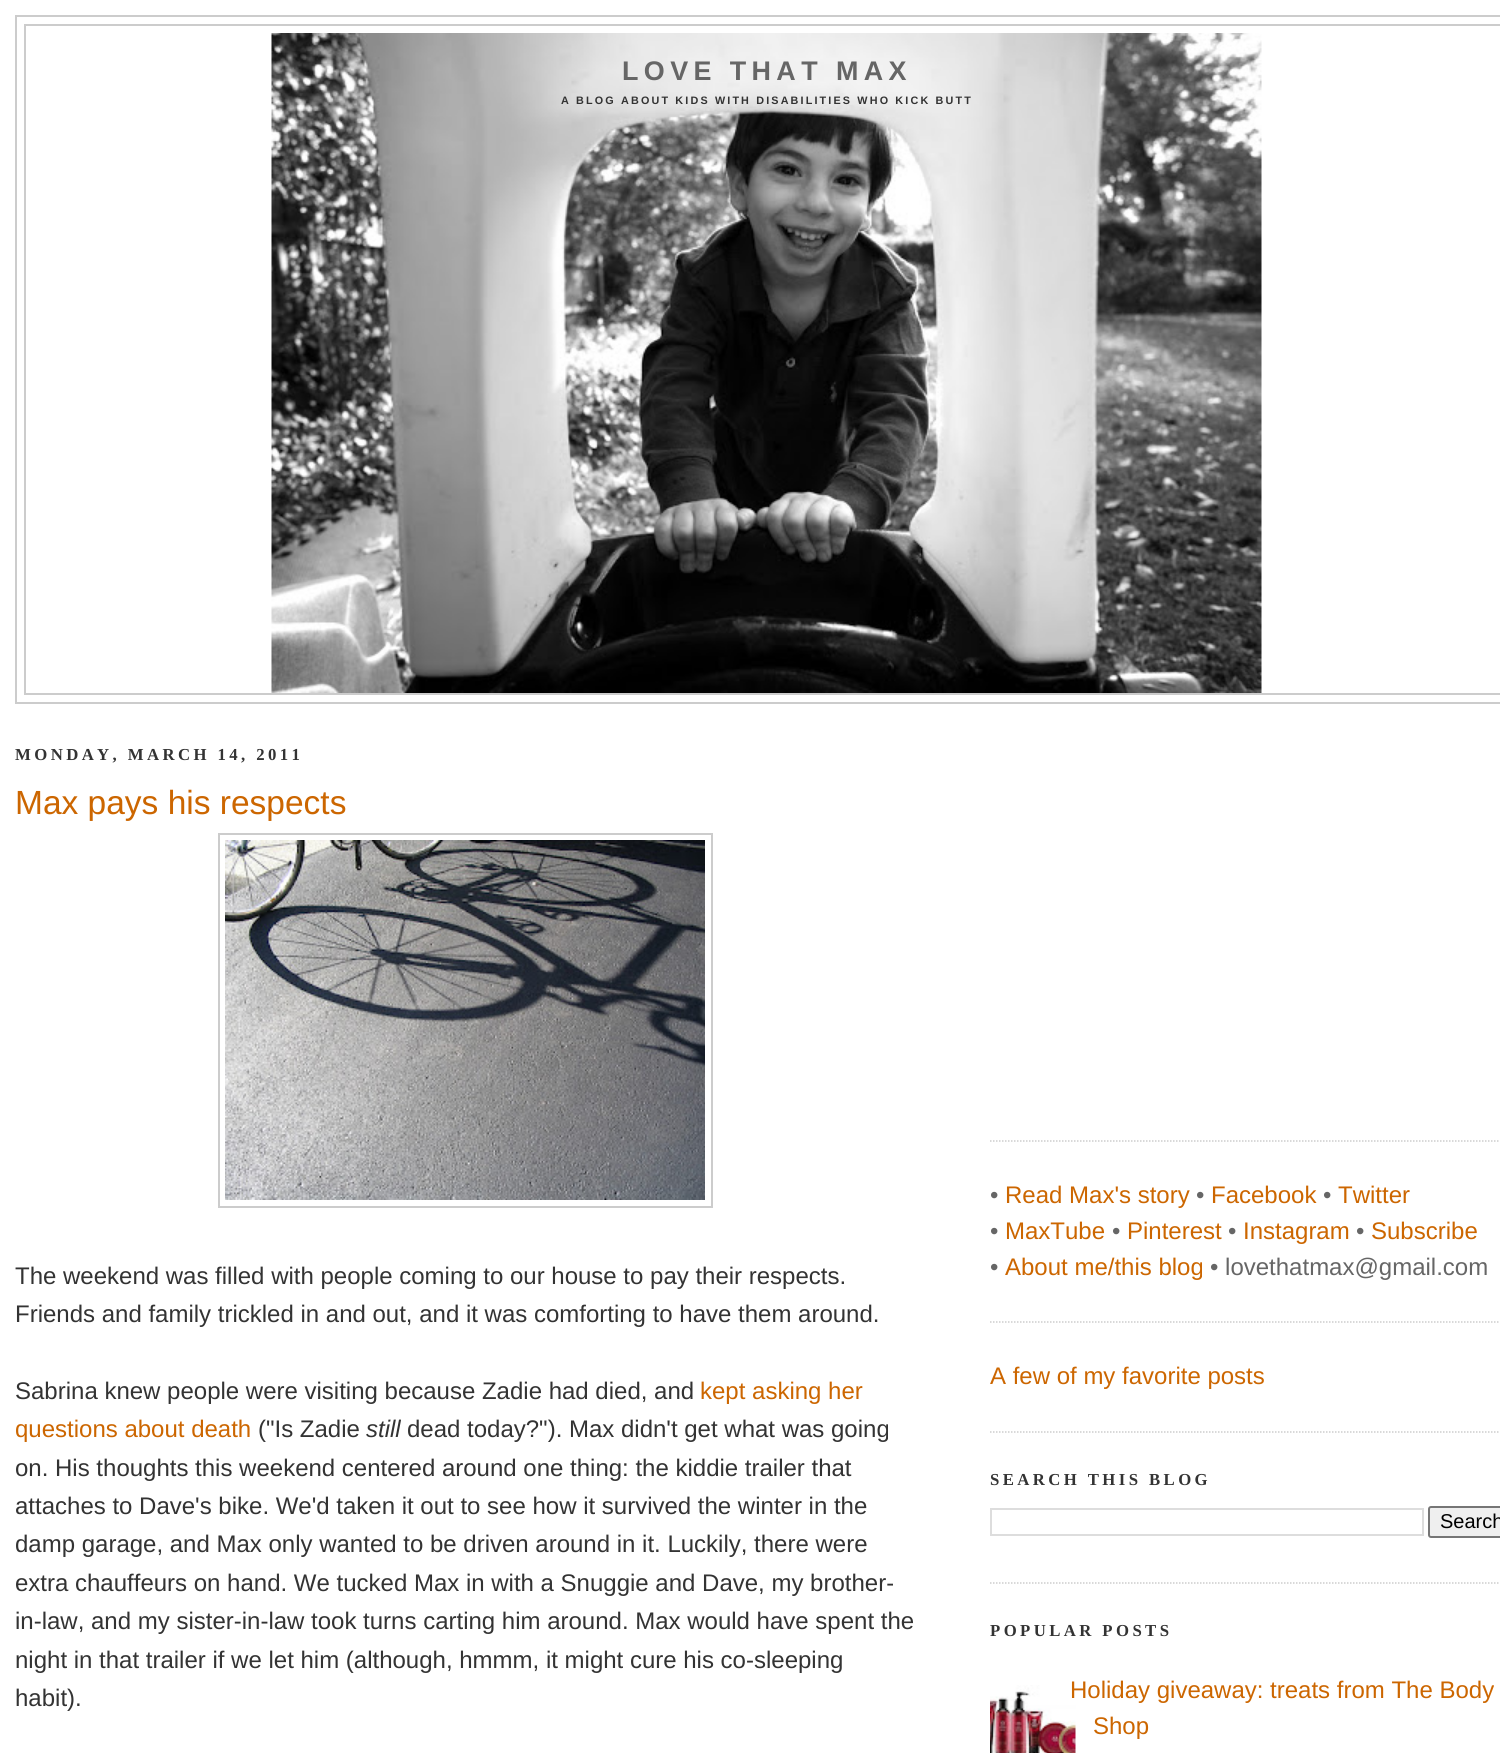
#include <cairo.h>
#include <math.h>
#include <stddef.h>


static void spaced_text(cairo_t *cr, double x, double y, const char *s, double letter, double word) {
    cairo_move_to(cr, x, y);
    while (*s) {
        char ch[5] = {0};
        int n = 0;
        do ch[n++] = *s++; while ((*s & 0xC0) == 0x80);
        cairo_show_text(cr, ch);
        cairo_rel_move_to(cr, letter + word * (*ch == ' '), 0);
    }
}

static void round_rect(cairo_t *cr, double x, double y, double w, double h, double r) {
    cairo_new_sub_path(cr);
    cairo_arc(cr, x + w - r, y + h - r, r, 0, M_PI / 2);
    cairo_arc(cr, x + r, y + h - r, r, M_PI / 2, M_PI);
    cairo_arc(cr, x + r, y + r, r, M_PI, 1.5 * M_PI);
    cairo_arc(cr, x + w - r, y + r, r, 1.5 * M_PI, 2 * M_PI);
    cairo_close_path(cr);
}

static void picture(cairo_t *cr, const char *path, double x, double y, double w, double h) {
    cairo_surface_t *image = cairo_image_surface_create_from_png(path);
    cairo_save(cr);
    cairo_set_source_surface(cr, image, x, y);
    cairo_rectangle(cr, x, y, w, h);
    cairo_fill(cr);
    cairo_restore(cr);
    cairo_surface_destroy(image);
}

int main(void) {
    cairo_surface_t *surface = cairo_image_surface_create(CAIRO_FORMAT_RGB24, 1500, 1753);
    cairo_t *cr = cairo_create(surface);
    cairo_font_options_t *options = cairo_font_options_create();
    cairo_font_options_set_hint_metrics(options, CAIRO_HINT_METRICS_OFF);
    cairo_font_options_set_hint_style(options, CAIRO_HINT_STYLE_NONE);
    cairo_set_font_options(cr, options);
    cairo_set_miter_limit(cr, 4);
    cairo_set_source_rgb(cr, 1, 1, 1);
    cairo_paint(cr);
    cairo_rectangle(cr, 16, 16, 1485, 687);
    cairo_set_source_rgb(cr, 0.8, 0.8, 0.8);
    cairo_stroke(cr);
    cairo_rectangle(cr, 25, 25, 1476, 669);
    cairo_stroke(cr);
    picture(cr, "img1.png", 271, 33, 991, 660);
    cairo_select_font_face(cr, "Liberation Sans", CAIRO_FONT_SLANT_NORMAL, CAIRO_FONT_WEIGHT_BOLD);
    cairo_set_font_size(cr, 26.9);
    cairo_set_source_rgb(cr, 0.4, 0.4, 0.4);
    spaced_text(cr, 622, 80, "LOVE THAT MAX", 5.4, 0);
    cairo_set_font_size(cr, 10.8);
    cairo_set_source_rgb(cr, 0.2, 0.2, 0.2);
    spaced_text(cr, 561, 104, "A BLOG ABOUT KIDS WITH DISABILITIES WHO KICK BUTT", 2.15, 0);
    cairo_select_font_face(cr, "Liberation Serif", CAIRO_FONT_SLANT_NORMAL, CAIRO_FONT_WEIGHT_BOLD);
    cairo_set_font_size(cr, 16.75);
    spaced_text(cr, 15, 760, "MONDAY, MARCH 14, 2011", 3.4, 0);
    cairo_select_font_face(cr, "Liberation Sans", CAIRO_FONT_SLANT_NORMAL, CAIRO_FONT_WEIGHT_NORMAL);
    cairo_set_font_size(cr, 33.5);
    cairo_set_source_rgb(cr, 0.8, 0.4, 0);
    cairo_move_to(cr, 15, 814);
    cairo_show_text(cr, "Max pays his respects");
    cairo_rectangle(cr, 219, 834, 493, 373);
    cairo_set_source_rgb(cr, 0.8, 0.8, 0.8);
    cairo_stroke(cr);
    picture(cr, "img2.png", 225, 840, 480, 360);
    cairo_set_font_size(cr, 24);
    cairo_set_source_rgb(cr, 0.2, 0.2, 0.2);
    cairo_move_to(cr, 15, 1284);
    cairo_show_text(cr, "The weekend was filled with people coming to our house to pay their respects.");
    cairo_move_to(cr, 15, 1322);
    cairo_show_text(cr, "Friends and family trickled in and out, and it was comforting to have them around.");
    cairo_move_to(cr, 15, 1399);
    cairo_show_text(cr, "Sabrina knew people were visiting because Zadie had died, and");
    cairo_set_source_rgb(cr, 0.8, 0.4, 0);
    cairo_move_to(cr, 700, 1399);
    cairo_show_text(cr, "kept asking her");
    cairo_move_to(cr, 15, 1437);
    cairo_show_text(cr, "questions about death");
    cairo_set_source_rgb(cr, 0.2, 0.2, 0.2);
    cairo_move_to(cr, 258, 1437);
    cairo_show_text(cr, "(\"Is Zadie");
    cairo_select_font_face(cr, "Liberation Sans", CAIRO_FONT_SLANT_ITALIC, CAIRO_FONT_WEIGHT_NORMAL);
    cairo_move_to(cr, 366, 1437);
    cairo_show_text(cr, "still");
    cairo_select_font_face(cr, "Liberation Sans", CAIRO_FONT_SLANT_NORMAL, CAIRO_FONT_WEIGHT_NORMAL);
    cairo_move_to(cr, 407, 1437);
    cairo_show_text(cr, "dead today?\"). Max didn't get what was going");
    cairo_move_to(cr, 15, 1476);
    cairo_show_text(cr, "on. His thoughts this weekend centered around one thing: the kiddie trailer that");
    cairo_move_to(cr, 15, 1514);
    cairo_show_text(cr, "attaches to Dave's bike. We'd taken it out to see how it survived the winter in the");
    cairo_move_to(cr, 15, 1552);
    cairo_show_text(cr, "damp garage, and Max only wanted to be driven around in it. Luckily, there were");
    cairo_move_to(cr, 15, 1591);
    cairo_show_text(cr, "extra chauffeurs on hand. We tucked Max in with a Snuggie and Dave, my brother-");
    cairo_move_to(cr, 15, 1629);
    cairo_show_text(cr, "in-law, and my sister-in-law took turns carting him around. Max would have spent the");
    cairo_move_to(cr, 15, 1668);
    cairo_show_text(cr, "night in that trailer if we let him (although, hmmm, it might cure his co-sleeping");
    cairo_move_to(cr, 15, 1706);
    cairo_show_text(cr, "habit).");
    cairo_new_path(cr);
    cairo_move_to(cr, 990, 1141);
    cairo_line_to(cr, 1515, 1141);
    cairo_set_source_rgb(cr, 0.8, 0.8, 0.8);
    cairo_set_line_width(cr, 1.5);
    cairo_set_dash(cr, (double[]){1.5, 1.5}, 2, 0);
    cairo_stroke(cr);
    cairo_new_path(cr);
    cairo_move_to(cr, 990, 1322);
    cairo_line_to(cr, 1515, 1322);
    cairo_stroke(cr);
    cairo_set_source_rgb(cr, 0.4, 0.4, 0.4);
    cairo_move_to(cr, 990, 1203);
    cairo_show_text(cr, "•");
    cairo_set_source_rgb(cr, 0.8, 0.4, 0);
    cairo_move_to(cr, 1005, 1203);
    cairo_show_text(cr, "Read Max's story");
    cairo_set_source_rgb(cr, 0.4, 0.4, 0.4);
    cairo_move_to(cr, 1196, 1203);
    cairo_show_text(cr, "•");
    cairo_set_source_rgb(cr, 0.8, 0.4, 0);
    cairo_move_to(cr, 1211, 1203);
    cairo_show_text(cr, "Facebook");
    cairo_set_source_rgb(cr, 0.4, 0.4, 0.4);
    cairo_move_to(cr, 1323, 1203);
    cairo_show_text(cr, "•");
    cairo_set_source_rgb(cr, 0.8, 0.4, 0);
    cairo_move_to(cr, 1338, 1203);
    cairo_show_text(cr, "Twitter");
    cairo_set_source_rgb(cr, 0.4, 0.4, 0.4);
    cairo_move_to(cr, 990, 1239);
    cairo_show_text(cr, "•");
    cairo_set_source_rgb(cr, 0.8, 0.4, 0);
    cairo_move_to(cr, 1005, 1239);
    cairo_show_text(cr, "MaxTube");
    cairo_set_source_rgb(cr, 0.4, 0.4, 0.4);
    cairo_move_to(cr, 1112, 1239);
    cairo_show_text(cr, "•");
    cairo_set_source_rgb(cr, 0.8, 0.4, 0);
    cairo_move_to(cr, 1127, 1239);
    cairo_show_text(cr, "Pinterest");
    cairo_set_source_rgb(cr, 0.4, 0.4, 0.4);
    cairo_move_to(cr, 1228, 1239);
    cairo_show_text(cr, "•");
    cairo_set_source_rgb(cr, 0.8, 0.4, 0);
    cairo_move_to(cr, 1243, 1239);
    cairo_show_text(cr, "Instagram");
    cairo_set_source_rgb(cr, 0.4, 0.4, 0.4);
    cairo_move_to(cr, 1356, 1239);
    cairo_show_text(cr, "•");
    cairo_set_source_rgb(cr, 0.8, 0.4, 0);
    cairo_move_to(cr, 1371, 1239);
    cairo_show_text(cr, "Subscribe");
    cairo_set_source_rgb(cr, 0.4, 0.4, 0.4);
    cairo_move_to(cr, 990, 1275);
    cairo_show_text(cr, "•");
    cairo_set_source_rgb(cr, 0.8, 0.4, 0);
    cairo_move_to(cr, 1005, 1275);
    cairo_show_text(cr, "About me/this blog");
    cairo_set_source_rgb(cr, 0.4, 0.4, 0.4);
    cairo_move_to(cr, 1210, 1275);
    cairo_show_text(cr, "• lovethatmax@gmail.com");
    cairo_new_path(cr);
    cairo_move_to(cr, 990, 1432);
    cairo_line_to(cr, 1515, 1432);
    cairo_set_source_rgb(cr, 0.8, 0.8, 0.8);
    cairo_stroke(cr);
    cairo_set_source_rgb(cr, 0.8, 0.4, 0);
    cairo_move_to(cr, 990, 1384);
    cairo_show_text(cr, "A few of my favorite posts");
    cairo_new_path(cr);
    cairo_move_to(cr, 990, 1583);
    cairo_line_to(cr, 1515, 1583);
    cairo_set_source_rgb(cr, 0.8, 0.8, 0.8);
    cairo_stroke(cr);
    cairo_select_font_face(cr, "Liberation Serif", CAIRO_FONT_SLANT_NORMAL, CAIRO_FONT_WEIGHT_BOLD);
    cairo_set_font_size(cr, 16.75);
    cairo_set_source_rgb(cr, 0.2, 0.2, 0.2);
    spaced_text(cr, 990, 1485, "SEARCH THIS BLOG", 3.4, 0);
    cairo_rectangle(cr, 991, 1509, 432, 26);
    cairo_set_source_rgb(cr, 0.867, 0.867, 0.867);
    cairo_set_line_width(cr, 2);
    cairo_set_dash(cr, NULL, 0, 0);
    cairo_stroke(cr);
    cairo_set_source_rgb(cr, 0.937, 0.937, 0.937);
    round_rect(cr, 1429, 1507, 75, 30, 2);
    cairo_fill_preserve(cr);
    cairo_set_source_rgb(cr, 0.463, 0.463, 0.463);
    cairo_stroke(cr);
    cairo_select_font_face(cr, "Liberation Sans", CAIRO_FONT_SLANT_NORMAL, CAIRO_FONT_WEIGHT_NORMAL);
    cairo_set_font_size(cr, 20);
    cairo_set_source_rgb(cr, 0, 0, 0);
    cairo_move_to(cr, 1440, 1528);
    cairo_show_text(cr, "Search");
    cairo_select_font_face(cr, "Liberation Serif", CAIRO_FONT_SLANT_NORMAL, CAIRO_FONT_WEIGHT_BOLD);
    cairo_set_font_size(cr, 16.75);
    cairo_set_source_rgb(cr, 0.2, 0.2, 0.2);
    spaced_text(cr, 990, 1636, "POPULAR POSTS", 3.4, 0);
    picture(cr, "img3.png", 990, 1685, 86, 68);
    cairo_select_font_face(cr, "Liberation Sans", CAIRO_FONT_SLANT_NORMAL, CAIRO_FONT_WEIGHT_NORMAL);
    cairo_set_font_size(cr, 24);
    cairo_set_source_rgb(cr, 0.8, 0.4, 0);
    cairo_move_to(cr, 1070, 1698);
    cairo_show_text(cr, "Holiday giveaway: treats from The Body");
    cairo_move_to(cr, 1093, 1734);
    cairo_show_text(cr, "Shop");
    cairo_surface_write_to_png(surface, "page.png");
    cairo_font_options_destroy(options);
    cairo_destroy(cr);
    cairo_surface_destroy(surface);
    return 0;
}
